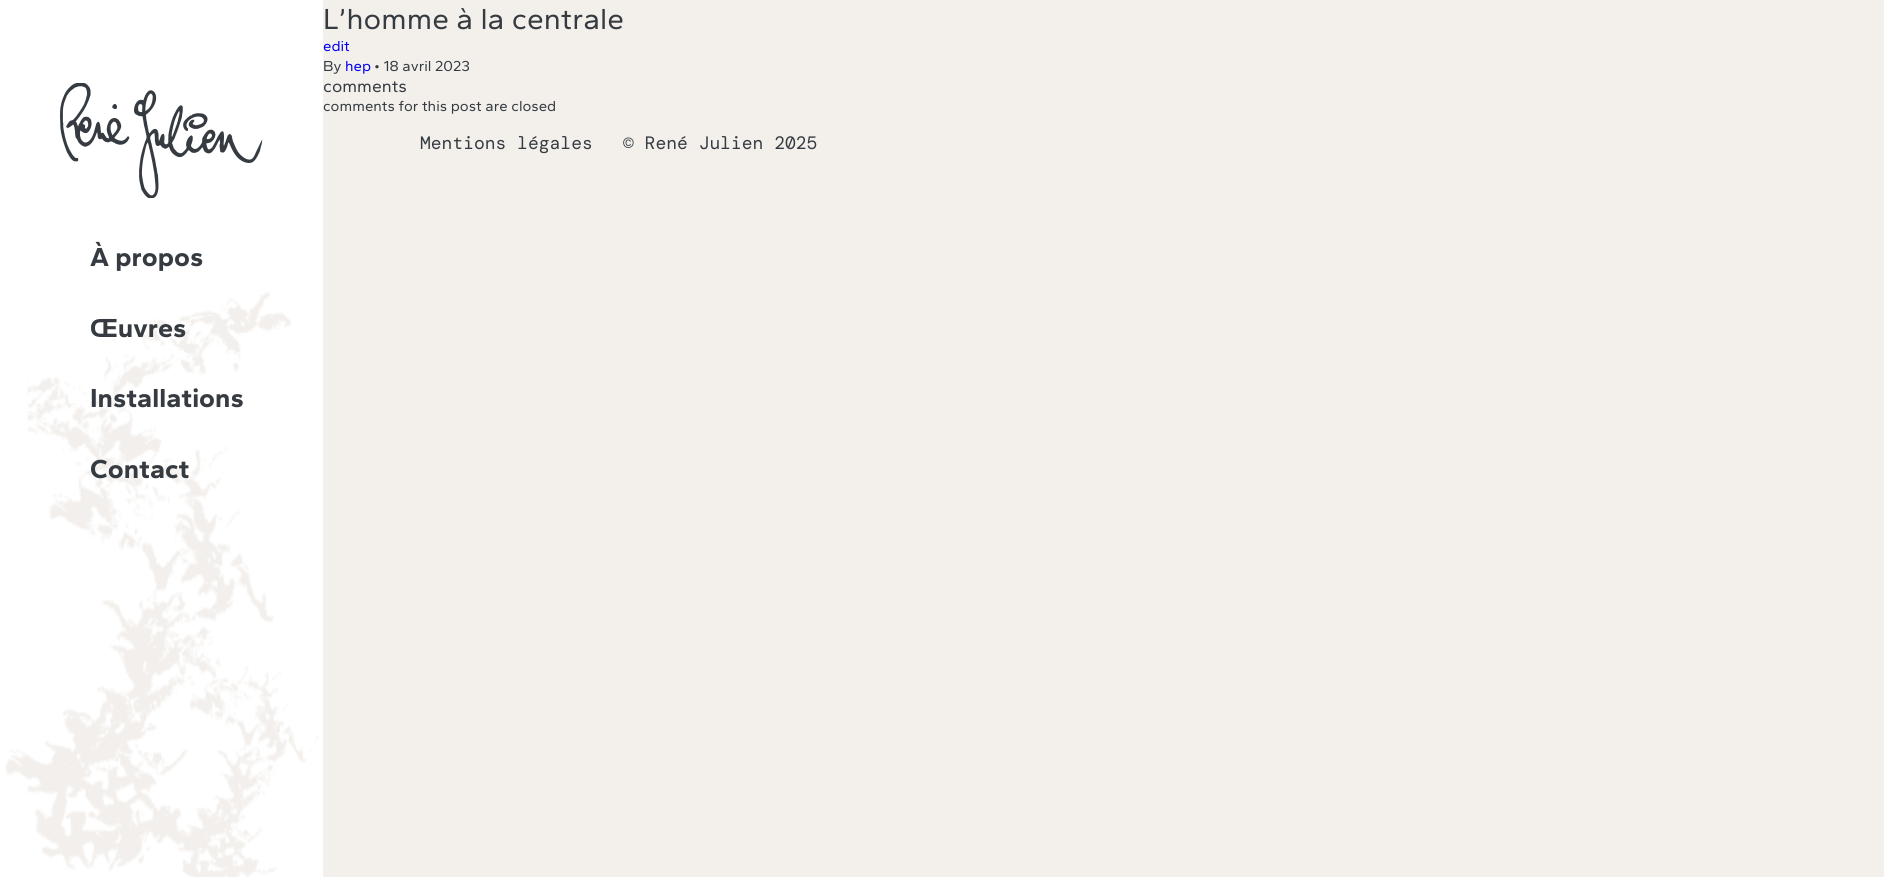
#include <cairo.h>
#include <math.h>
#include <stddef.h>


static void picture(cairo_t *cr, const char *path, double x, double y, double w, double h) {
    cairo_surface_t *image = cairo_image_surface_create_from_png(path);
    cairo_save(cr);
    cairo_set_source_surface(cr, image, x, y);
    cairo_rectangle(cr, x, y, w, h);
    cairo_fill(cr);
    cairo_restore(cr);
    cairo_surface_destroy(image);
}

int main(void) {
    cairo_surface_t *surface = cairo_image_surface_create(CAIRO_FORMAT_RGB24, 1884, 877);
    cairo_t *cr = cairo_create(surface);
    cairo_font_options_t *options = cairo_font_options_create();
    cairo_font_options_set_hint_metrics(options, CAIRO_HINT_METRICS_OFF);
    cairo_font_options_set_hint_style(options, CAIRO_HINT_STYLE_NONE);
    cairo_set_font_options(cr, options);
    cairo_set_miter_limit(cr, 4);
    cairo_set_source_rgb(cr, 0.953, 0.941, 0.922);
    cairo_paint(cr);
    cairo_select_font_face(cr, "Gantari", CAIRO_FONT_SLANT_NORMAL, CAIRO_FONT_WEIGHT_NORMAL);
    cairo_set_font_size(cr, 30);
    cairo_set_source_rgb(cr, 0.208, 0.231, 0.255);
    cairo_move_to(cr, 323, 29);
    cairo_show_text(cr, "L’homme à la centrale");
    cairo_set_font_size(cr, 15);
    cairo_set_source_rgb(cr, 0, 0, 0.933);
    cairo_move_to(cr, 323, 51);
    cairo_show_text(cr, "edit");
    cairo_set_source_rgb(cr, 0.208, 0.231, 0.255);
    cairo_move_to(cr, 323, 71);
    cairo_show_text(cr, "By");
    cairo_set_source_rgb(cr, 0, 0, 0.933);
    cairo_move_to(cr, 345, 71);
    cairo_show_text(cr, "hep");
    cairo_set_source_rgb(cr, 0.208, 0.231, 0.255);
    cairo_move_to(cr, 374, 71);
    cairo_show_text(cr, "• 18 avril 2023");
    cairo_set_font_size(cr, 17.5);
    cairo_move_to(cr, 323, 92);
    cairo_show_text(cr, "comments");
    cairo_set_font_size(cr, 15);
    cairo_move_to(cr, 323, 111);
    cairo_show_text(cr, "comments for this post are closed");
    cairo_select_font_face(cr, "DM Mono", CAIRO_FONT_SLANT_NORMAL, CAIRO_FONT_WEIGHT_NORMAL);
    cairo_set_font_size(cr, 18);
    cairo_move_to(cr, 420, 149);
    cairo_show_text(cr, "Mentions légales");
    cairo_move_to(cr, 623, 149);
    cairo_show_text(cr, "© René Julien 2025");
    cairo_set_source_rgb(cr, 1, 1, 1);
    cairo_rectangle(cr, 0, 0, 323, 877);
    cairo_fill(cr);
    picture(cr, "img1.png", 60, 83, 203, 115);
    cairo_select_font_face(cr, "Gantari", CAIRO_FONT_SLANT_NORMAL, CAIRO_FONT_WEIGHT_BOLD);
    cairo_set_font_size(cr, 27);
    cairo_set_source_rgb(cr, 0.208, 0.231, 0.255);
    cairo_move_to(cr, 90, 266);
    cairo_show_text(cr, "À propos");
    picture(cr, "img2.png", 5, 291, 314, 586);
    cairo_move_to(cr, 90, 337);
    cairo_show_text(cr, "Œuvres");
    cairo_move_to(cr, 90, 407);
    cairo_show_text(cr, "Installations");
    cairo_move_to(cr, 90, 478);
    cairo_show_text(cr, "Contact");
    cairo_surface_write_to_png(surface, "page.png");
    cairo_font_options_destroy(options);
    cairo_destroy(cr);
    cairo_surface_destroy(surface);
    return 0;
}
